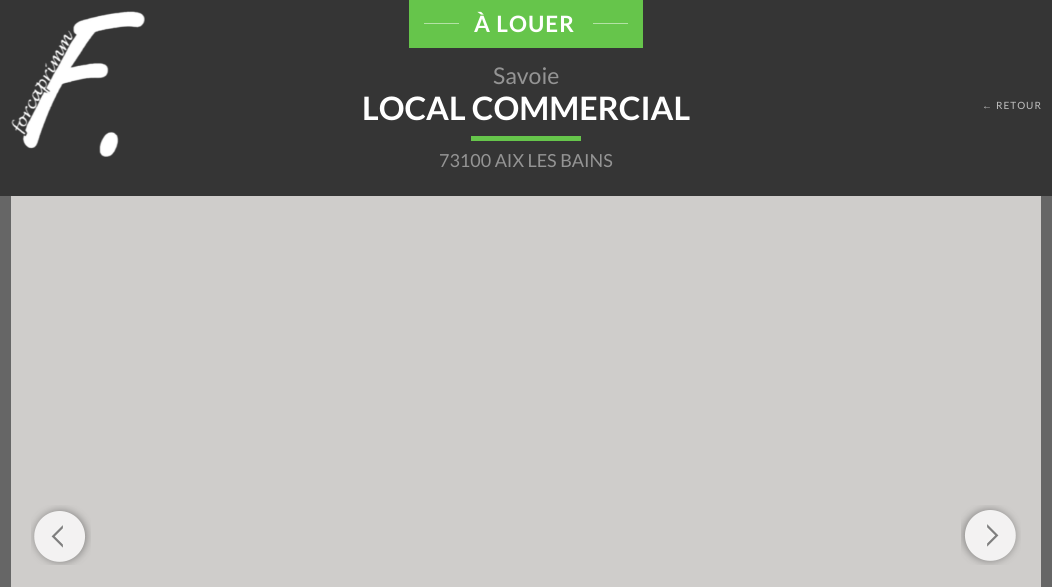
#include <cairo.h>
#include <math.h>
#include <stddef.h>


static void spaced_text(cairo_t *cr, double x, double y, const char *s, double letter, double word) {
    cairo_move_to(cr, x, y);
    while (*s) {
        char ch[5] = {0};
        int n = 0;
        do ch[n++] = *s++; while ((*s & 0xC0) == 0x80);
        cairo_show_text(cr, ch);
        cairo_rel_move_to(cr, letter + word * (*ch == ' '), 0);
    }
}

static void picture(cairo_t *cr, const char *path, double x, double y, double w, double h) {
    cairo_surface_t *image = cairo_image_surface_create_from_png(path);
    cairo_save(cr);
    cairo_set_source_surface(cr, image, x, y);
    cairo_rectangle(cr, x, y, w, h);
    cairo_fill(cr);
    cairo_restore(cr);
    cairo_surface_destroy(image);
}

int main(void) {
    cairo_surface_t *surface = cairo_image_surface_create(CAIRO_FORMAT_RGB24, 1052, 587);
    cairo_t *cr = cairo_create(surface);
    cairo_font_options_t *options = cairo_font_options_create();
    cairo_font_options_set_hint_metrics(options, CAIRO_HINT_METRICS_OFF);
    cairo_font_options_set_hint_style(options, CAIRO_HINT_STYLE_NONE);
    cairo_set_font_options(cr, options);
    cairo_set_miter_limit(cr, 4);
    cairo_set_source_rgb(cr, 0.208, 0.208, 0.208);
    cairo_paint(cr);
    picture(cr, "img1.png", 11, 11, 134, 146);
    cairo_set_source_rgb(cr, 0.4, 0.773, 0.294);
    cairo_rectangle(cr, 409, 0, 234, 48);
    cairo_fill(cr);
    cairo_set_source_rgb(cr, 0.702, 0.886, 0.647);
    cairo_rectangle(cr, 424, 23, 35, 1);
    cairo_fill(cr);
    cairo_select_font_face(cr, "Lato", CAIRO_FONT_SLANT_NORMAL, CAIRO_FONT_WEIGHT_BOLD);
    cairo_set_font_size(cr, 22.5);
    cairo_set_source_rgb(cr, 1, 1, 1);
    spaced_text(cr, 474, 32, "À LOUER", 1, 0);
    cairo_set_source_rgb(cr, 0.702, 0.886, 0.647);
    cairo_rectangle(cr, 593, 23, 35, 1);
    cairo_fill(cr);
    cairo_select_font_face(cr, "Lato", CAIRO_FONT_SLANT_NORMAL, CAIRO_FONT_WEIGHT_NORMAL);
    cairo_set_font_size(cr, 23);
    cairo_set_source_rgb(cr, 0.58, 0.58, 0.58);
    cairo_move_to(cr, 493, 84);
    cairo_show_text(cr, "Savoie");
    cairo_select_font_face(cr, "Lato", CAIRO_FONT_SLANT_NORMAL, CAIRO_FONT_WEIGHT_BOLD);
    cairo_set_font_size(cr, 32.25);
    cairo_set_source_rgb(cr, 1, 1, 1);
    cairo_move_to(cr, 362, 120);
    cairo_show_text(cr, "LOCAL COMMERCIAL");
    cairo_set_source_rgb(cr, 0.4, 0.773, 0.294);
    cairo_rectangle(cr, 471, 136, 110, 5);
    cairo_fill(cr);
    cairo_select_font_face(cr, "Lato", CAIRO_FONT_SLANT_NORMAL, CAIRO_FONT_WEIGHT_NORMAL);
    cairo_set_font_size(cr, 18);
    cairo_set_source_rgb(cr, 0.58, 0.58, 0.58);
    cairo_move_to(cr, 439, 167);
    cairo_show_text(cr, "73100 AIX LES BAINS");
    cairo_select_font_face(cr, "Liberation Sans", CAIRO_FONT_SLANT_NORMAL, CAIRO_FONT_WEIGHT_NORMAL);
    cairo_set_font_size(cr, 10);
    cairo_set_source_rgb(cr, 0.749, 0.749, 0.749);
    spaced_text(cr, 982, 109, "←", 1, 0);
    cairo_select_font_face(cr, "Lato", CAIRO_FONT_SLANT_NORMAL, CAIRO_FONT_WEIGHT_NORMAL);
    spaced_text(cr, 996, 109, "RETOUR", 1, 0);
    cairo_set_source_rgb(cr, 0.812, 0.804, 0.796);
    cairo_rectangle(cr, 11, 196, 1030, 391);
    cairo_fill(cr);
    cairo_set_source_rgb(cr, 0.4, 0.4, 0.4);
    cairo_rectangle(cr, 0, 196, 11, 391);
    cairo_fill(cr);
    picture(cr, "img2.png", 31, 505, 60, 60);
    picture(cr, "img3.png", 961, 505, 60, 60);
    cairo_rectangle(cr, 1041, 196, 11, 391);
    cairo_fill(cr);
    cairo_surface_write_to_png(surface, "page.png");
    cairo_font_options_destroy(options);
    cairo_destroy(cr);
    cairo_surface_destroy(surface);
    return 0;
}
